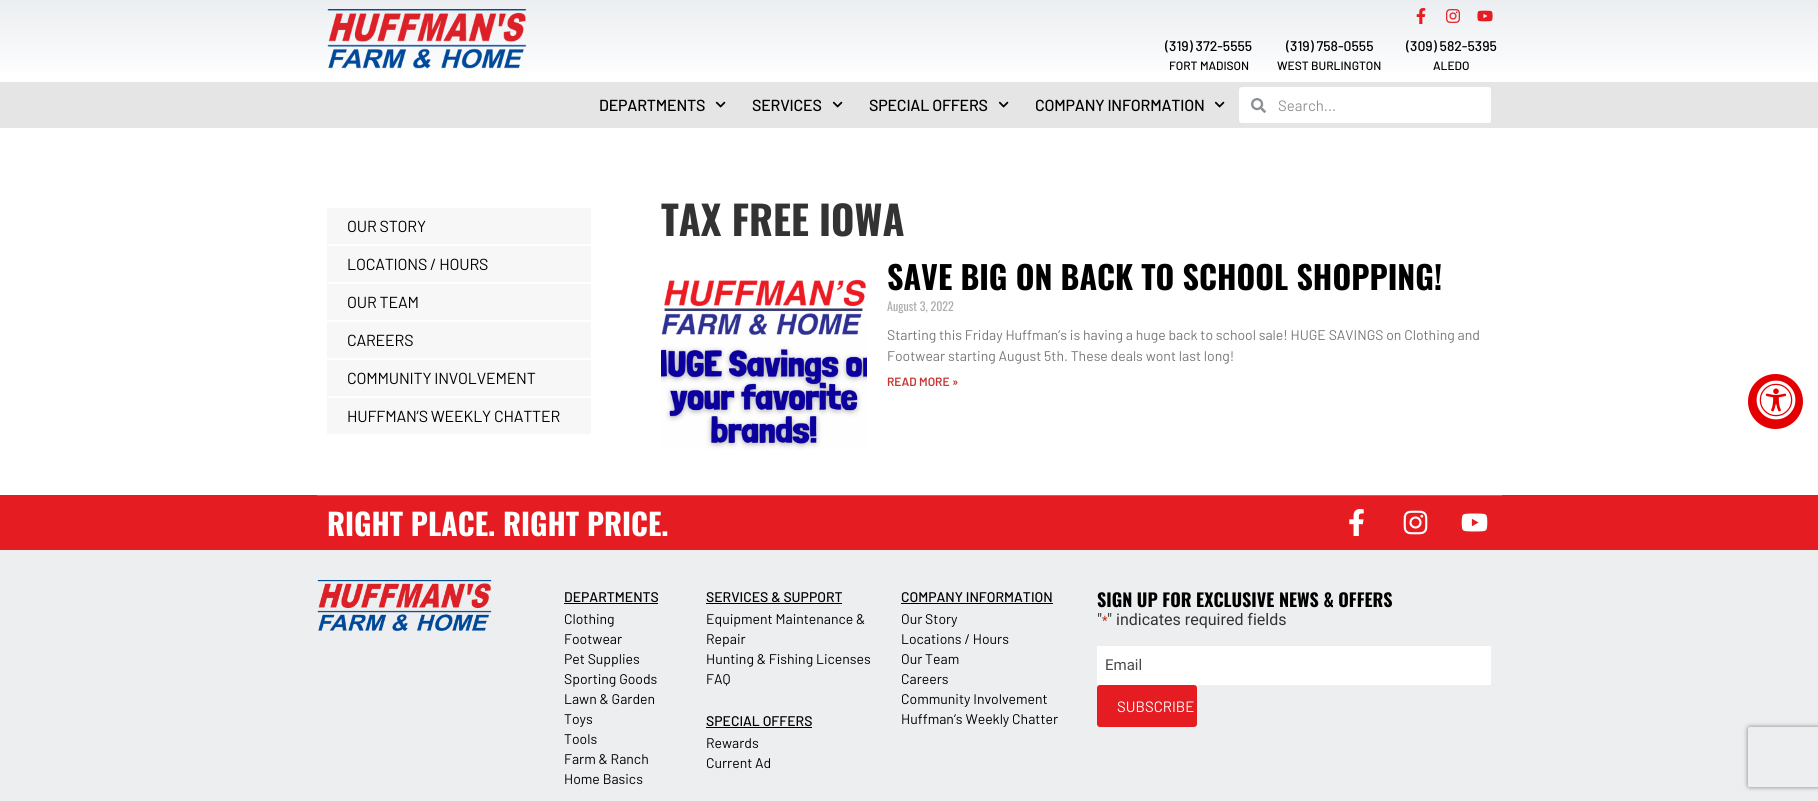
#include <cairo.h>
#include <math.h>
#include <stddef.h>


static void spaced_text(cairo_t *cr, double x, double y, const char *s, double letter, double word) {
    cairo_move_to(cr, x, y);
    while (*s) {
        char ch[5] = {0};
        int n = 0;
        do ch[n++] = *s++; while ((*s & 0xC0) == 0x80);
        cairo_show_text(cr, ch);
        cairo_rel_move_to(cr, letter + word * (*ch == ' '), 0);
    }
}

static void round_rect(cairo_t *cr, double x, double y, double w, double h, double r) {
    cairo_new_sub_path(cr);
    cairo_arc(cr, x + w - r, y + h - r, r, 0, M_PI / 2);
    cairo_arc(cr, x + r, y + h - r, r, M_PI / 2, M_PI);
    cairo_arc(cr, x + r, y + r, r, M_PI, 1.5 * M_PI);
    cairo_arc(cr, x + w - r, y + r, r, 1.5 * M_PI, 2 * M_PI);
    cairo_close_path(cr);
}

static void shadow(cairo_t *cr, double x, double y, double w, double h, double r, double blur, double alpha) {
    cairo_push_group_with_content(cr, CAIRO_CONTENT_ALPHA);
    cairo_set_operator(cr, CAIRO_OPERATOR_SOURCE);
    for (int i = 15; i >= -15 && fmin(w, h) + blur * i / 3 > 0; i -= 2) {
        double e = blur * i / 6;
        cairo_set_source_rgba(cr, 0, 0, 0, alpha * erfc((i - 1) / 8.5) / 2);
        round_rect(cr, x - e, y - e, w + 2 * e, h + 2 * e, fmax(0, fmin(r + e + blur * .6, fmin(w, h) / 2 + e)));
        cairo_fill(cr);
    }
    cairo_pattern_t *soft = cairo_pop_group(cr);
    cairo_mask(cr, soft);
    cairo_pattern_destroy(soft);
}

static void picture(cairo_t *cr, const char *path, double x, double y, double w, double h) {
    cairo_surface_t *image = cairo_image_surface_create_from_png(path);
    cairo_save(cr);
    cairo_set_source_surface(cr, image, x, y);
    cairo_rectangle(cr, x, y, w, h);
    cairo_fill(cr);
    cairo_restore(cr);
    cairo_surface_destroy(image);
}

int main(void) {
    cairo_surface_t *surface = cairo_image_surface_create(CAIRO_FORMAT_RGB24, 1818, 801);
    cairo_t *cr = cairo_create(surface);
    cairo_font_options_t *options = cairo_font_options_create();
    cairo_font_options_set_hint_metrics(options, CAIRO_HINT_METRICS_OFF);
    cairo_font_options_set_hint_style(options, CAIRO_HINT_STYLE_NONE);
    cairo_set_font_options(cr, options);
    cairo_set_miter_limit(cr, 4);
    cairo_pattern_t *gradient;
    cairo_set_source_rgb(cr, 1, 1, 1);
    cairo_paint(cr);
    gradient = cairo_pattern_create_linear(909, 0, 909, 82);
    cairo_pattern_add_color_stop_rgba(gradient, 0, 0.922, 0.933, 0.945, 1);
    cairo_pattern_add_color_stop_rgba(gradient, 1, 1, 1, 1, 1);
    cairo_set_source(cr, gradient);
    cairo_pattern_destroy(gradient);
    cairo_rectangle(cr, 0, 0, 1818, 72);
    cairo_fill(cr);
    picture(cr, "img1.png", 327, 9, 200, 60);
    picture(cr, "img2.png", 1416, 8, 10, 16);
    picture(cr, "img3.png", 1446, 9, 14, 14);
    picture(cr, "img4.png", 1477, 10, 16, 12);
    cairo_select_font_face(cr, "Barlow Medium", CAIRO_FONT_SLANT_NORMAL, CAIRO_FONT_WEIGHT_NORMAL);
    cairo_set_font_size(cr, 14);
    cairo_set_source_rgb(cr, 0, 0, 0);
    cairo_move_to(cr, 1165, 51);
    cairo_show_text(cr, "(319) 372-5555");
    cairo_set_font_size(cr, 12);
    cairo_move_to(cr, 1169, 70);
    cairo_show_text(cr, "FORT MADISON");
    cairo_set_font_size(cr, 14);
    cairo_move_to(cr, 1286, 51);
    cairo_show_text(cr, "(319) 758-0555");
    cairo_set_font_size(cr, 12);
    cairo_move_to(cr, 1277, 70);
    cairo_show_text(cr, "WEST BURLINGTON");
    cairo_set_font_size(cr, 14);
    cairo_move_to(cr, 1406, 51);
    cairo_show_text(cr, "(309) 582-5395");
    cairo_set_font_size(cr, 12);
    cairo_move_to(cr, 1433, 70);
    cairo_show_text(cr, "ALEDO");
    cairo_set_source_rgb(cr, 0.898, 0.898, 0.898);
    cairo_rectangle(cr, 0, 82, 1818, 46);
    cairo_fill(cr);
    cairo_set_font_size(cr, 16);
    cairo_set_source_rgb(cr, 0, 0, 0);
    spaced_text(cr, 599, 111, "DEPARTMENTS", -0.2, 0);
    picture(cr, "img5.png", 715, 101, 11, 7);
    spaced_text(cr, 752, 111, "SERVICES", -0.2, 0);
    picture(cr, "img5.png", 832, 101, 11, 7);
    spaced_text(cr, 869, 111, "SPECIAL OFFERS", -0.2, 0);
    picture(cr, "img5.png", 998, 101, 11, 7);
    spaced_text(cr, 1035, 111, "COMPANY INFORMATION", -0.2, 0);
    picture(cr, "img5.png", 1214, 101, 11, 7);
    cairo_set_source_rgb(cr, 1, 1, 1);
    round_rect(cr, 1239, 87, 252, 36, 3);
    cairo_fill(cr);
    picture(cr, "img6.png", 1251, 98, 15, 15);
    cairo_new_path(cr);
    cairo_move_to(cr, 1266, 87);
    cairo_line_to(cr, 1488, 87);
    cairo_curve_to(cr, 1489.5, 87, 1491, 88.5, 1491, 90);
    cairo_line_to(cr, 1491, 120);
    cairo_curve_to(cr, 1491, 121.5, 1489.5, 123, 1488, 123);
    cairo_line_to(cr, 1266, 123);
    cairo_close_path(cr);
    cairo_fill(cr);
    cairo_select_font_face(cr, "Barlow", CAIRO_FONT_SLANT_NORMAL, CAIRO_FONT_WEIGHT_NORMAL);
    cairo_set_font_size(cr, 15);
    cairo_set_source_rgb(cr, 0.58, 0.569, 0.569);
    cairo_move_to(cr, 1278, 111);
    cairo_show_text(cr, "Search...");
    cairo_set_source_rgb(cr, 0.965, 0.965, 0.969);
    cairo_rectangle(cr, 327, 208, 264, 226);
    cairo_fill(cr);
    cairo_set_source_rgb(cr, 1, 1, 1);
    cairo_rectangle(cr, 327, 244, 264, 2);
    cairo_fill(cr);
    cairo_set_font_size(cr, 16);
    cairo_set_source_rgb(cr, 0, 0, 0);
    spaced_text(cr, 347, 232, "OUR STORY", -0.2, 0);
    cairo_set_source_rgb(cr, 1, 1, 1);
    cairo_rectangle(cr, 327, 282, 264, 2);
    cairo_fill(cr);
    cairo_set_source_rgb(cr, 0, 0, 0);
    spaced_text(cr, 347, 270, "LOCATIONS / HOURS", -0.2, 0);
    cairo_set_source_rgb(cr, 1, 1, 1);
    cairo_rectangle(cr, 327, 320, 264, 2);
    cairo_fill(cr);
    cairo_set_source_rgb(cr, 0, 0, 0);
    spaced_text(cr, 347, 308, "OUR TEAM", -0.2, 0);
    cairo_set_source_rgb(cr, 1, 1, 1);
    cairo_rectangle(cr, 327, 358, 264, 2);
    cairo_fill(cr);
    cairo_set_source_rgb(cr, 0, 0, 0);
    spaced_text(cr, 347, 346, "CAREERS", -0.2, 0);
    cairo_set_source_rgb(cr, 1, 1, 1);
    cairo_rectangle(cr, 327, 396, 264, 2);
    cairo_fill(cr);
    cairo_set_source_rgb(cr, 0, 0, 0);
    spaced_text(cr, 347, 384, "COMMUNITY INVOLVEMENT", -0.2, 0);
    spaced_text(cr, 347, 422, "HUFFMAN’S WEEKLY CHATTER", -0.2, 0);
    cairo_select_font_face(cr, "Oswald", CAIRO_FONT_SLANT_NORMAL, CAIRO_FONT_WEIGHT_BOLD);
    cairo_set_font_size(cr, 40);
    cairo_set_source_rgb(cr, 0.2, 0.2, 0.2);
    cairo_move_to(cr, 661, 236);
    cairo_show_text(cr, "TAX FREE IOWA");
    picture(cr, "img7.png", 661, 279, 206, 171);
    cairo_set_font_size(cr, 32);
    cairo_set_source_rgb(cr, 0, 0, 0);
    cairo_move_to(cr, 887, 290);
    cairo_show_text(cr, "SAVE BIG ON BACK TO SCHOOL SHOPPING!");
    cairo_select_font_face(cr, "Oswald", CAIRO_FONT_SLANT_NORMAL, CAIRO_FONT_WEIGHT_NORMAL);
    cairo_set_font_size(cr, 12);
    cairo_set_source_rgb(cr, 0.678, 0.678, 0.678);
    cairo_move_to(cr, 887, 311);
    cairo_show_text(cr, "August 3, 2022");
    cairo_select_font_face(cr, "Barlow", CAIRO_FONT_SLANT_NORMAL, CAIRO_FONT_WEIGHT_NORMAL);
    cairo_set_font_size(cr, 14);
    cairo_set_source_rgb(cr, 0.467, 0.467, 0.467);
    cairo_move_to(cr, 887, 340);
    cairo_show_text(cr, "Starting this Friday Huffman’s is having a huge back to school sale! HUGE SAVINGS on Clothing and");
    cairo_move_to(cr, 887, 361);
    cairo_show_text(cr, "Footwear starting August 5th. These deals wont last long!");
    cairo_select_font_face(cr, "Barlow SemiBold", CAIRO_FONT_SLANT_NORMAL, CAIRO_FONT_WEIGHT_NORMAL);
    cairo_set_font_size(cr, 12);
    cairo_set_source_rgb(cr, 0.784, 0.216, 0.2);
    cairo_move_to(cr, 887, 386);
    cairo_show_text(cr, "READ MORE »");
    cairo_set_source_rgb(cr, 0.894, 0, 0);
    cairo_new_path(cr);
    cairo_arc(cr, 1775.5, 401.5, 27.5, 0, 2 * M_PI);
    cairo_fill(cr);
    picture(cr, "img8.png", 1756, 380, 40, 40);
    cairo_set_source_rgb(cr, 0.898, 0.114, 0.133);
    cairo_rectangle(cr, 0, 495, 1818, 55);
    cairo_fill(cr);
    cairo_set_source_rgb(cr, 0.925, 0.337, 0.349);
    cairo_rectangle(cr, 317, 495, 1185, 1);
    cairo_fill(cr);
    cairo_select_font_face(cr, "Oswald", CAIRO_FONT_SLANT_NORMAL, CAIRO_FONT_WEIGHT_BOLD);
    cairo_set_font_size(cr, 30);
    cairo_set_source_rgb(cr, 1, 1, 1);
    cairo_move_to(cr, 327, 536);
    cairo_show_text(cr, "RIGHT PLACE. RIGHT PRICE.");
    picture(cr, "img9.png", 1349, 509, 15, 27);
    picture(cr, "img10.png", 1403, 510, 25, 25);
    picture(cr, "img11.png", 1461, 513, 27, 19);
    cairo_set_source_rgb(cr, 0.929, 0.933, 0.937);
    cairo_rectangle(cr, 0, 550, 1818, 251);
    cairo_fill(cr);
    picture(cr, "img12.png", 317, 580, 175, 51);
    cairo_select_font_face(cr, "Barlow Medium", CAIRO_FONT_SLANT_NORMAL, CAIRO_FONT_WEIGHT_NORMAL);
    cairo_set_font_size(cr, 14);
    cairo_set_source_rgb(cr, 0, 0, 0);
    cairo_move_to(cr, 564, 602);
    cairo_show_text(cr, "DEPARTMENTS");
    cairo_rectangle(cr, 564, 603, 94, 1);
    cairo_fill(cr);
    cairo_select_font_face(cr, "Barlow", CAIRO_FONT_SLANT_NORMAL, CAIRO_FONT_WEIGHT_NORMAL);
    cairo_move_to(cr, 564, 624);
    cairo_show_text(cr, "Clothing");
    cairo_move_to(cr, 564, 644);
    cairo_show_text(cr, "Footwear");
    cairo_move_to(cr, 564, 664);
    cairo_show_text(cr, "Pet Supplies");
    cairo_move_to(cr, 564, 684);
    cairo_show_text(cr, "Sporting Goods");
    cairo_move_to(cr, 564, 704);
    cairo_show_text(cr, "Lawn & Garden");
    cairo_move_to(cr, 564, 724);
    cairo_show_text(cr, "Toys");
    cairo_move_to(cr, 564, 744);
    cairo_show_text(cr, "Tools");
    cairo_move_to(cr, 564, 764);
    cairo_show_text(cr, "Farm & Ranch");
    cairo_move_to(cr, 564, 784);
    cairo_show_text(cr, "Home Basics");
    cairo_select_font_face(cr, "Barlow Medium", CAIRO_FONT_SLANT_NORMAL, CAIRO_FONT_WEIGHT_NORMAL);
    cairo_move_to(cr, 706, 602);
    cairo_show_text(cr, "SERVICES & SUPPORT");
    cairo_rectangle(cr, 706, 603, 136, 1);
    cairo_fill(cr);
    cairo_select_font_face(cr, "Barlow", CAIRO_FONT_SLANT_NORMAL, CAIRO_FONT_WEIGHT_NORMAL);
    cairo_move_to(cr, 706, 624);
    cairo_show_text(cr, "Equipment Maintenance &");
    cairo_move_to(cr, 706, 644);
    cairo_show_text(cr, "Repair");
    cairo_move_to(cr, 706, 664);
    cairo_show_text(cr, "Hunting & Fishing Licenses");
    cairo_move_to(cr, 706, 684);
    cairo_show_text(cr, "FAQ");
    cairo_select_font_face(cr, "Barlow Medium", CAIRO_FONT_SLANT_NORMAL, CAIRO_FONT_WEIGHT_NORMAL);
    cairo_move_to(cr, 706, 726);
    cairo_show_text(cr, "SPECIAL OFFERS");
    cairo_rectangle(cr, 706, 727, 106, 1);
    cairo_fill(cr);
    cairo_select_font_face(cr, "Barlow", CAIRO_FONT_SLANT_NORMAL, CAIRO_FONT_WEIGHT_NORMAL);
    cairo_move_to(cr, 706, 748);
    cairo_show_text(cr, "Rewards");
    cairo_move_to(cr, 706, 768);
    cairo_show_text(cr, "Current Ad");
    cairo_select_font_face(cr, "Barlow Medium", CAIRO_FONT_SLANT_NORMAL, CAIRO_FONT_WEIGHT_NORMAL);
    cairo_move_to(cr, 901, 602);
    cairo_show_text(cr, "COMPANY INFORMATION");
    cairo_rectangle(cr, 901, 603, 152, 1);
    cairo_fill(cr);
    cairo_select_font_face(cr, "Barlow", CAIRO_FONT_SLANT_NORMAL, CAIRO_FONT_WEIGHT_NORMAL);
    cairo_move_to(cr, 901, 624);
    cairo_show_text(cr, "Our Story");
    cairo_move_to(cr, 901, 644);
    cairo_show_text(cr, "Locations / Hours");
    cairo_move_to(cr, 901, 664);
    cairo_show_text(cr, "Our Team");
    cairo_move_to(cr, 901, 684);
    cairo_show_text(cr, "Careers");
    cairo_move_to(cr, 901, 704);
    cairo_show_text(cr, "Community Involvement");
    cairo_move_to(cr, 901, 724);
    cairo_show_text(cr, "Huffman’s Weekly Chatter");
    cairo_select_font_face(cr, "Oswald", CAIRO_FONT_SLANT_NORMAL, CAIRO_FONT_WEIGHT_BOLD);
    cairo_set_font_size(cr, 18);
    cairo_move_to(cr, 1097, 607);
    cairo_show_text(cr, "SIGN UP FOR EXCLUSIVE NEWS & OFFERS");
    cairo_select_font_face(cr, "Roboto", CAIRO_FONT_SLANT_NORMAL, CAIRO_FONT_WEIGHT_NORMAL);
    cairo_set_font_size(cr, 16);
    cairo_set_source_rgb(cr, 0.2, 0.2, 0.2);
    cairo_move_to(cr, 1097, 625);
    cairo_show_text(cr, "\"");
    cairo_set_font_size(cr, 13);
    cairo_set_source_rgb(cr, 0.753, 0.169, 0.039);
    cairo_move_to(cr, 1102, 625);
    cairo_show_text(cr, "*");
    cairo_set_font_size(cr, 16);
    cairo_set_source_rgb(cr, 0.2, 0.2, 0.2);
    cairo_move_to(cr, 1107, 625);
    cairo_show_text(cr, "\" indicates required fields");
    cairo_set_source_rgb(cr, 1, 1, 1);
    cairo_rectangle(cr, 1097, 646, 394, 39);
    cairo_fill(cr);
    cairo_set_font_size(cr, 15);
    cairo_set_source_rgb(cr, 0.298, 0.282, 0.282);
    cairo_move_to(cr, 1105, 670);
    cairo_show_text(cr, "Email");
    cairo_set_source_rgb(cr, 0.898, 0.114, 0.133);
    round_rect(cr, 1097, 685, 100, 42, 3);
    cairo_fill(cr);
    cairo_select_font_face(cr, "Barlow", CAIRO_FONT_SLANT_NORMAL, CAIRO_FONT_WEIGHT_NORMAL);
    cairo_set_source_rgb(cr, 1, 1, 1);
    cairo_move_to(cr, 1117, 712);
    cairo_show_text(cr, "SUBSCRIBE");
    cairo_save(cr);
    cairo_set_fill_rule(cr, CAIRO_FILL_RULE_EVEN_ODD);
    cairo_new_path(cr);
    cairo_move_to(cr, 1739, 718);
    cairo_line_to(cr, 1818, 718);
    cairo_line_to(cr, 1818, 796);
    cairo_line_to(cr, 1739, 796);
    cairo_close_path(cr);
    cairo_move_to(cr, 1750, 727);
    cairo_line_to(cr, 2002, 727);
    cairo_curve_to(cr, 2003, 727, 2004, 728, 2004, 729);
    cairo_line_to(cr, 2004, 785);
    cairo_curve_to(cr, 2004, 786, 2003, 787, 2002, 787);
    cairo_line_to(cr, 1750, 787);
    cairo_curve_to(cr, 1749, 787, 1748, 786, 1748, 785);
    cairo_line_to(cr, 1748, 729);
    cairo_curve_to(cr, 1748, 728, 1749, 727, 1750, 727);
    cairo_close_path(cr);
    cairo_clip(cr);
    cairo_set_source_rgb(cr, 0.502, 0.502, 0.502);
    shadow(cr, 1748, 727, 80, 60, 2, 2.5, 1);
    cairo_restore(cr);
    cairo_surface_write_to_png(surface, "page.png");
    cairo_font_options_destroy(options);
    cairo_destroy(cr);
    cairo_surface_destroy(surface);
    return 0;
}
